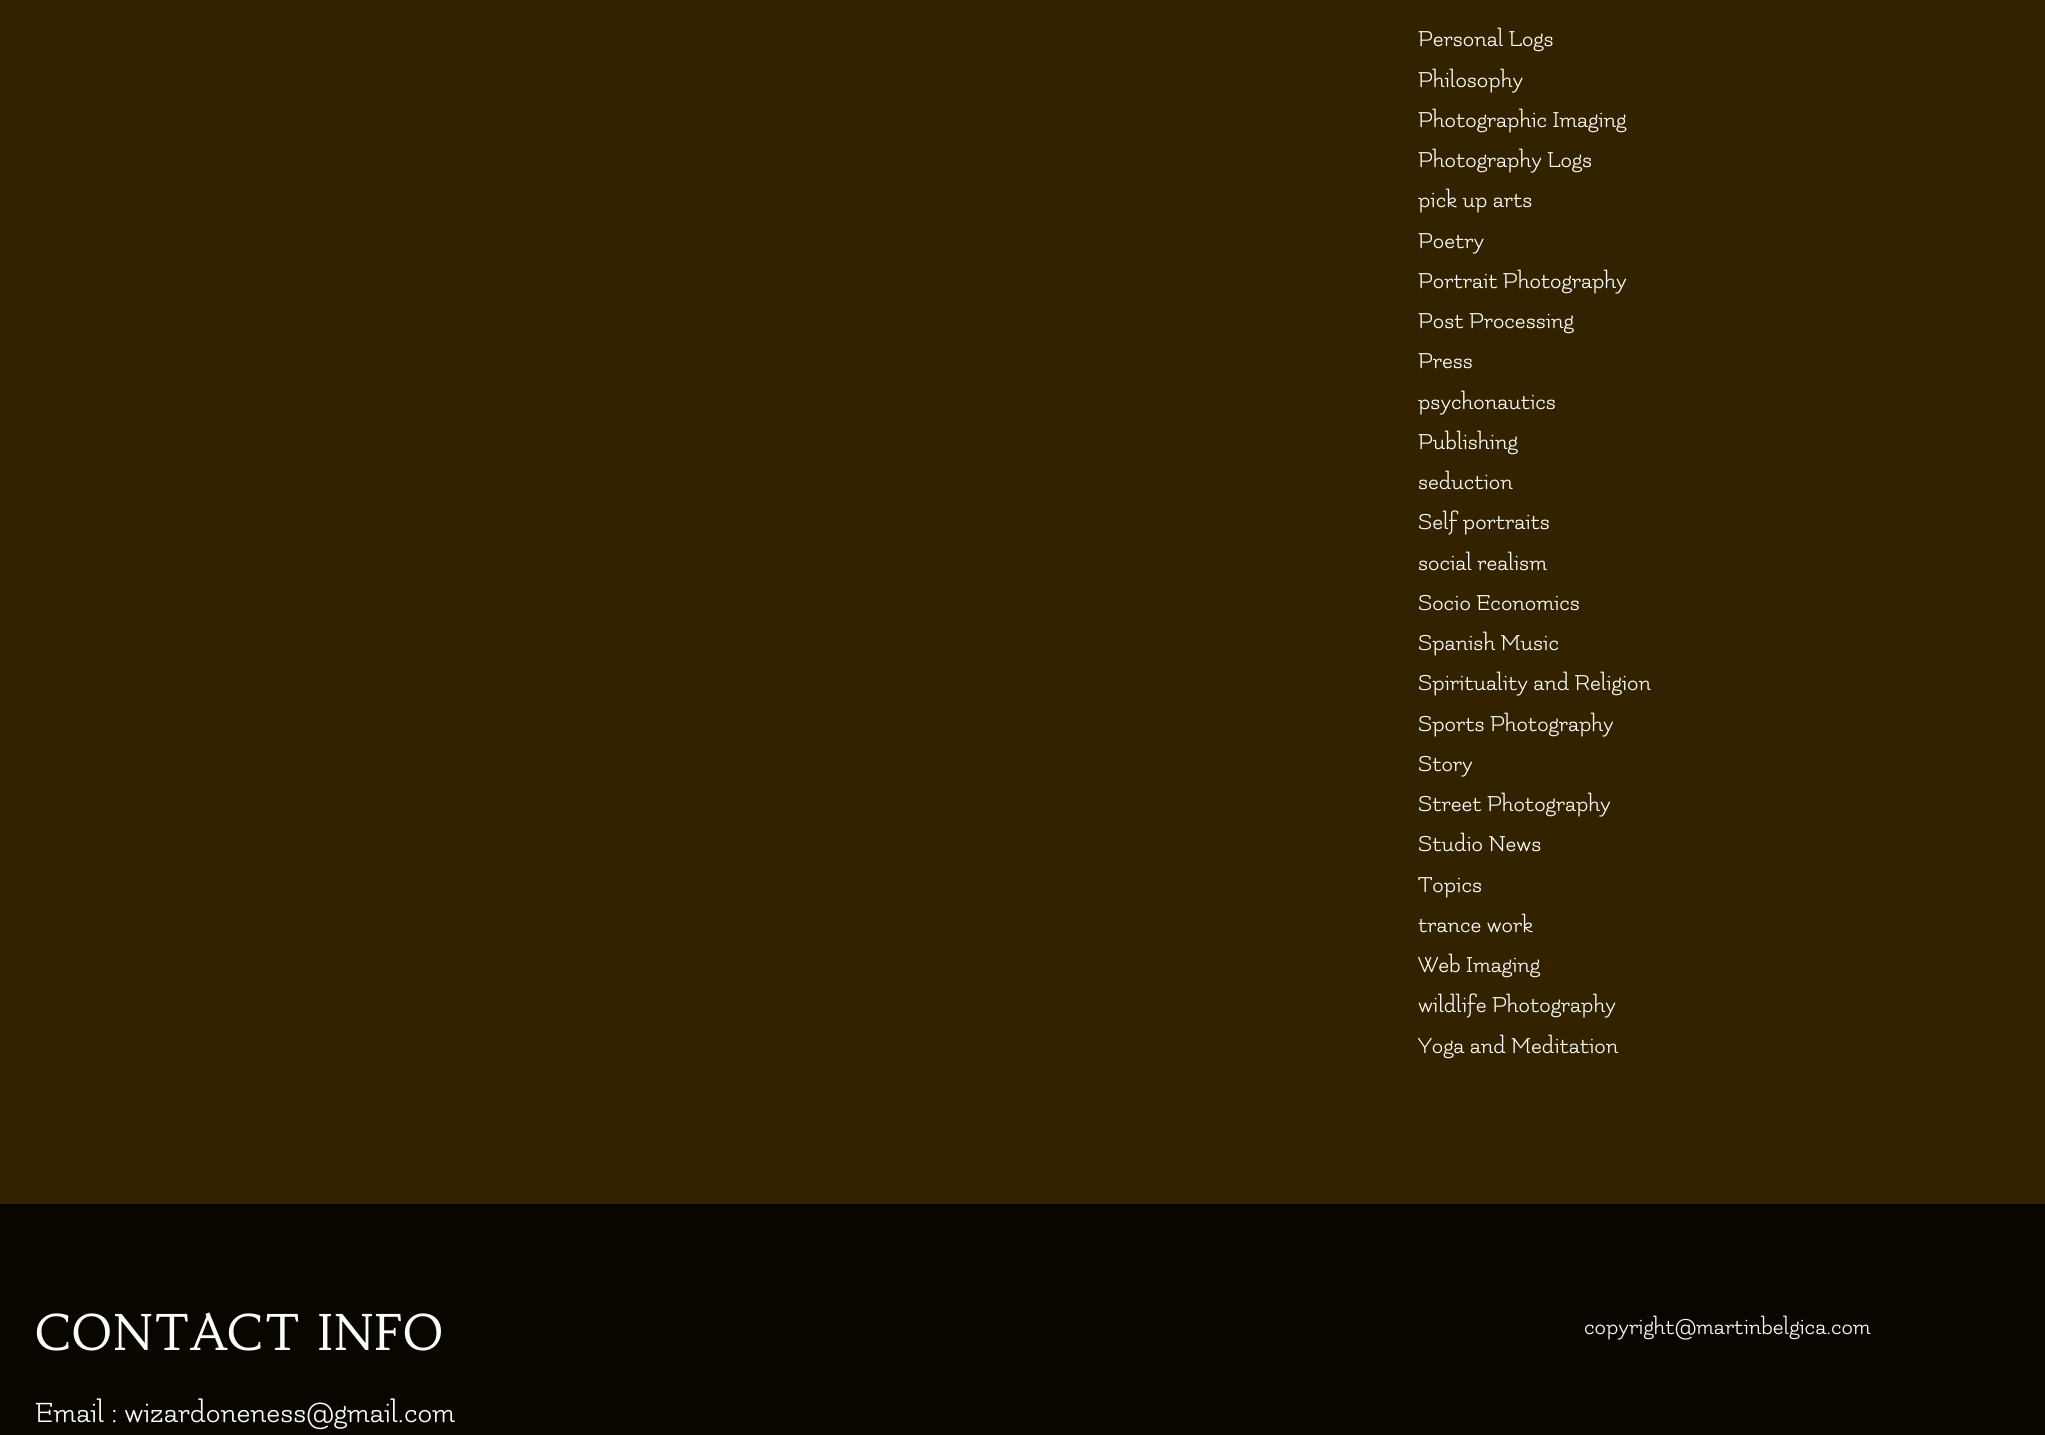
#include <cairo.h>
#include <math.h>
#include <stddef.h>


int main(void) {
    cairo_surface_t *surface = cairo_image_surface_create(CAIRO_FORMAT_RGB24, 2045, 1435);
    cairo_t *cr = cairo_create(surface);
    cairo_font_options_t *options = cairo_font_options_create();
    cairo_font_options_set_hint_metrics(options, CAIRO_HINT_METRICS_OFF);
    cairo_font_options_set_hint_style(options, CAIRO_HINT_STYLE_NONE);
    cairo_set_font_options(cr, options);
    cairo_set_miter_limit(cr, 4);
    cairo_set_source_rgb(cr, 0.2, 0.133, 0);
    cairo_paint(cr);
    cairo_select_font_face(cr, "Flamenco", CAIRO_FONT_SLANT_NORMAL, CAIRO_FONT_WEIGHT_NORMAL);
    cairo_set_font_size(cr, 24.5);
    cairo_set_source_rgb(cr, 0.988, 0.988, 0.988);
    cairo_move_to(cr, 1418, 46);
    cairo_show_text(cr, "Personal Logs");
    cairo_move_to(cr, 1418, 87);
    cairo_show_text(cr, "Philosophy");
    cairo_move_to(cr, 1418, 127);
    cairo_show_text(cr, "Photographic Imaging");
    cairo_move_to(cr, 1418, 167);
    cairo_show_text(cr, "Photography Logs");
    cairo_move_to(cr, 1418, 207);
    cairo_show_text(cr, "pick up arts");
    cairo_move_to(cr, 1418, 248);
    cairo_show_text(cr, "Poetry");
    cairo_move_to(cr, 1418, 288);
    cairo_show_text(cr, "Portrait Photography");
    cairo_move_to(cr, 1418, 328);
    cairo_show_text(cr, "Post Processing");
    cairo_move_to(cr, 1418, 368);
    cairo_show_text(cr, "Press");
    cairo_move_to(cr, 1418, 409);
    cairo_show_text(cr, "psychonautics");
    cairo_move_to(cr, 1418, 449);
    cairo_show_text(cr, "Publishing");
    cairo_move_to(cr, 1418, 489);
    cairo_show_text(cr, "seduction");
    cairo_move_to(cr, 1418, 529);
    cairo_show_text(cr, "Self portraits");
    cairo_move_to(cr, 1418, 570);
    cairo_show_text(cr, "social realism");
    cairo_move_to(cr, 1418, 610);
    cairo_show_text(cr, "Socio Economics");
    cairo_move_to(cr, 1418, 650);
    cairo_show_text(cr, "Spanish Music");
    cairo_move_to(cr, 1418, 690);
    cairo_show_text(cr, "Spirituality and Religion");
    cairo_move_to(cr, 1418, 731);
    cairo_show_text(cr, "Sports Photography");
    cairo_move_to(cr, 1418, 771);
    cairo_show_text(cr, "Story");
    cairo_move_to(cr, 1418, 811);
    cairo_show_text(cr, "Street Photography");
    cairo_move_to(cr, 1418, 851);
    cairo_show_text(cr, "Studio News");
    cairo_move_to(cr, 1418, 892);
    cairo_show_text(cr, "Topics");
    cairo_move_to(cr, 1418, 932);
    cairo_show_text(cr, "trance work");
    cairo_move_to(cr, 1418, 972);
    cairo_show_text(cr, "Web Imaging");
    cairo_move_to(cr, 1418, 1012);
    cairo_show_text(cr, "wildlife Photography");
    cairo_move_to(cr, 1418, 1053);
    cairo_show_text(cr, "Yoga and Meditation");
    cairo_set_source_rgb(cr, 0.039, 0.024, 0);
    cairo_rectangle(cr, 0, 1206, 2045, 229);
    cairo_fill(cr);
    cairo_set_source_rgb(cr, 0.031, 0.02, 0);
    cairo_rectangle(cr, 0, 1204, 2045, 2);
    cairo_fill(cr);
    cairo_select_font_face(cr, "Habibi", CAIRO_FONT_SLANT_NORMAL, CAIRO_FONT_WEIGHT_NORMAL);
    cairo_set_font_size(cr, 49);
    cairo_set_source_rgb(cr, 0.988, 0.988, 0.988);
    cairo_move_to(cr, 35, 1350);
    cairo_show_text(cr, "CONTACT INFO");
    cairo_select_font_face(cr, "Flamenco", CAIRO_FONT_SLANT_NORMAL, CAIRO_FONT_WEIGHT_NORMAL);
    cairo_set_font_size(cr, 31.5);
    cairo_move_to(cr, 35, 1422);
    cairo_show_text(cr, "Email : wizardoneness@gmail.com");
    cairo_set_font_size(cr, 24.5);
    cairo_move_to(cr, 1584, 1334);
    cairo_show_text(cr, "copyright@martinbelgica.com");
    cairo_surface_write_to_png(surface, "page.png");
    cairo_font_options_destroy(options);
    cairo_destroy(cr);
    cairo_surface_destroy(surface);
    return 0;
}
